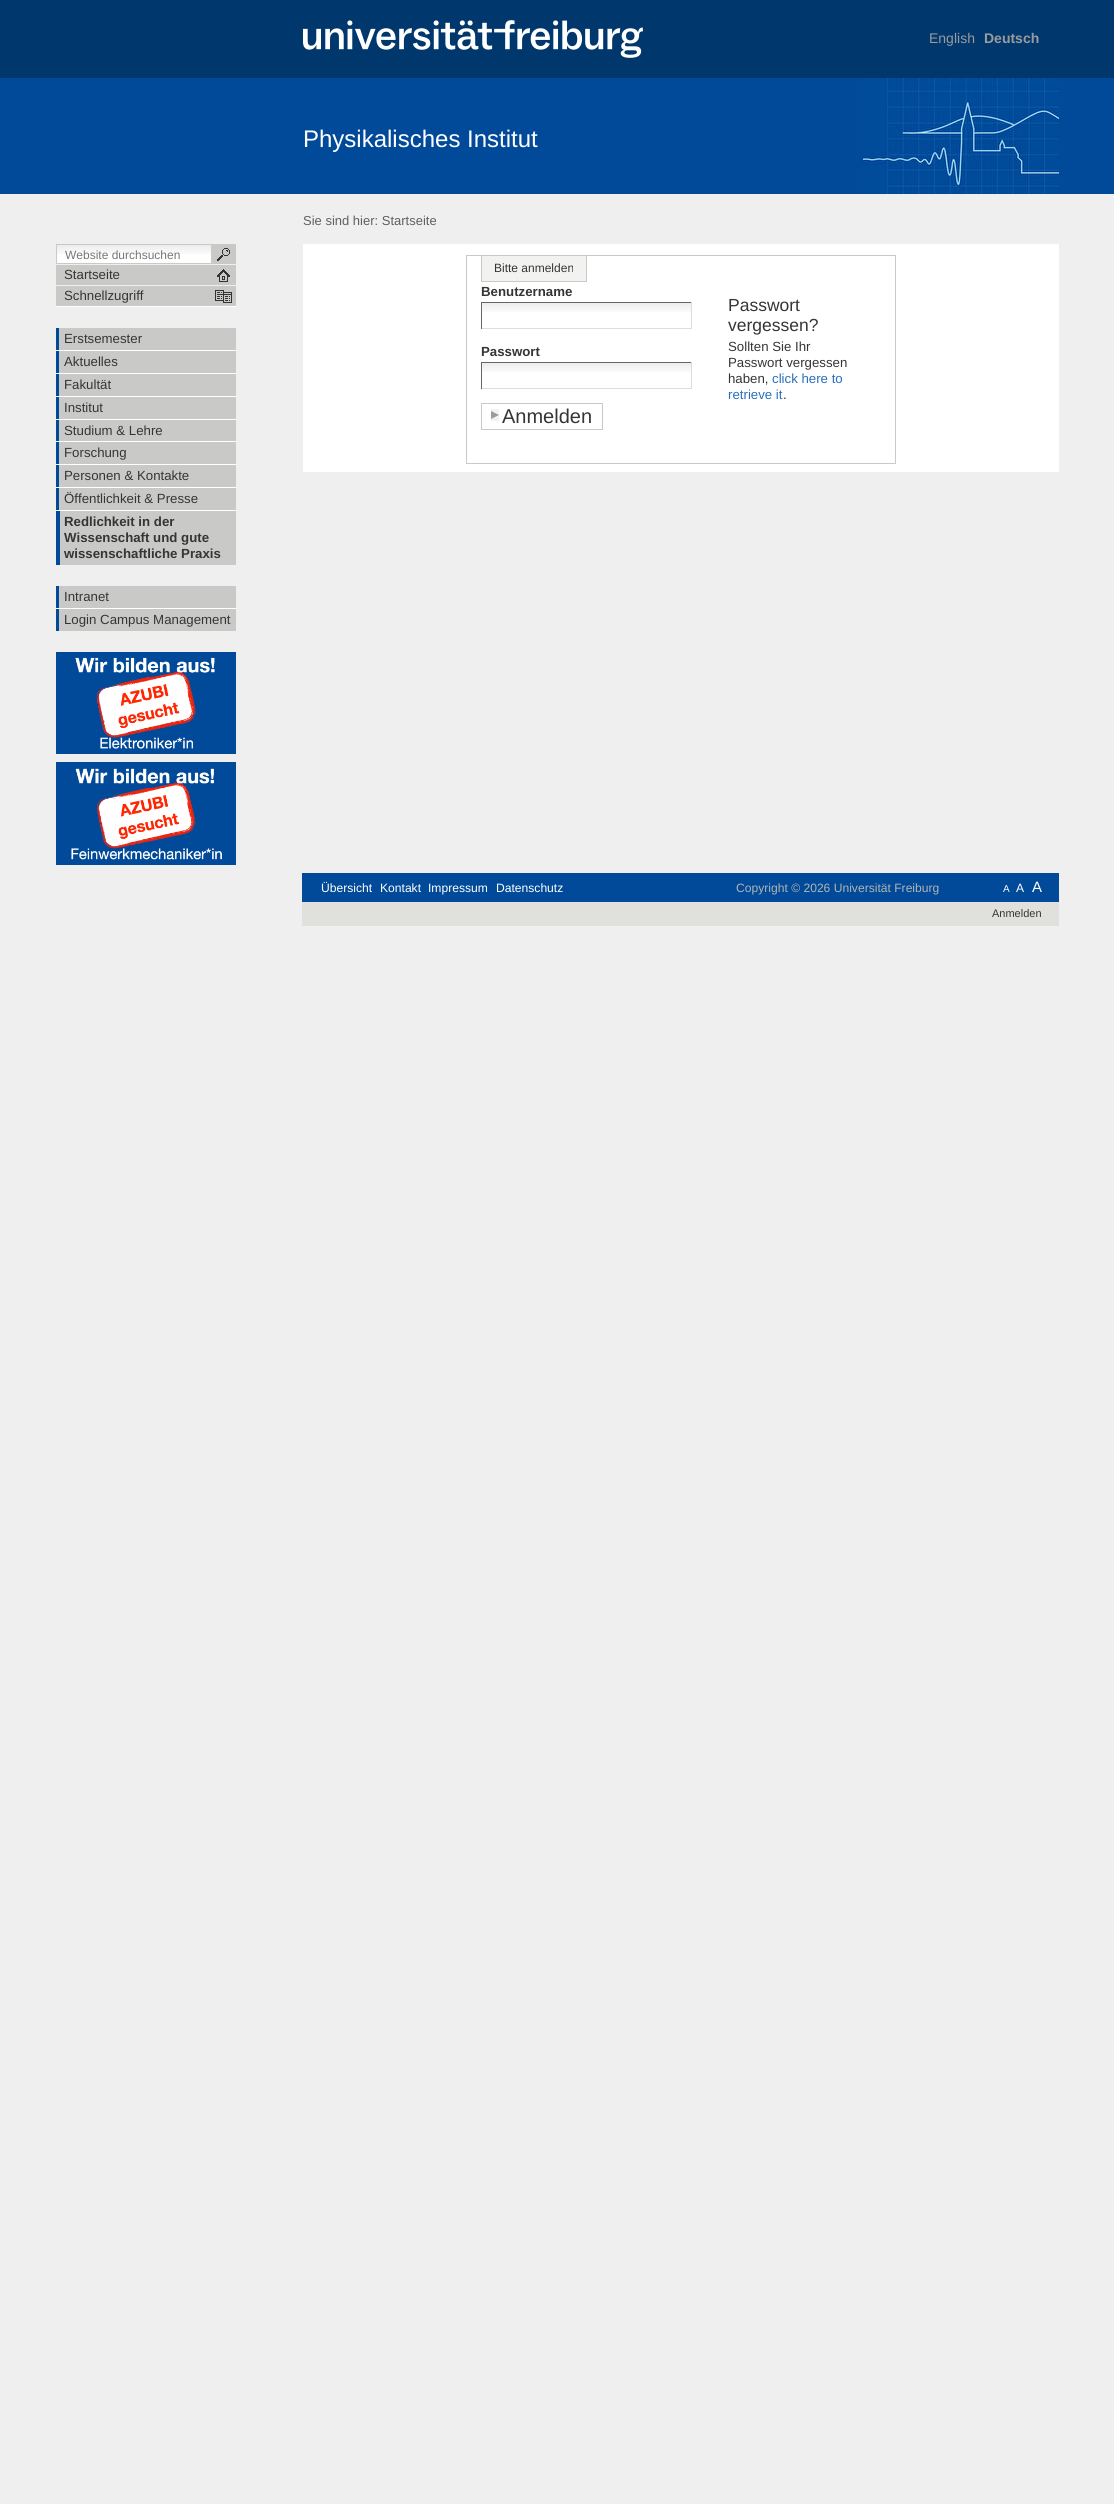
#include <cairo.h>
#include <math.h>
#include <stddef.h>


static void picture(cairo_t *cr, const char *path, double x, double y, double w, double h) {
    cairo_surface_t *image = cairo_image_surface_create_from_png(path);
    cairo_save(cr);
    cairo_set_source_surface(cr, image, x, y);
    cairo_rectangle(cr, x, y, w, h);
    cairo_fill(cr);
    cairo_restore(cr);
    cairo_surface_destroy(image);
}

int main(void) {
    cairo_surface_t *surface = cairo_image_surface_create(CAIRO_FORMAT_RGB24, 1114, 2504);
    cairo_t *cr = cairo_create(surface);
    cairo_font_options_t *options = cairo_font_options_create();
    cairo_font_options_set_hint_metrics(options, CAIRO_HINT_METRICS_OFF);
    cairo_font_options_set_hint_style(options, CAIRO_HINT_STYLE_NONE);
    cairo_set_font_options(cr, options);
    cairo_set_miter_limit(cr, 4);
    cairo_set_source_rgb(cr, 0.937, 0.937, 0.937);
    cairo_paint(cr);
    cairo_set_source_rgb(cr, 0, 0.216, 0.427);
    cairo_rectangle(cr, 0, 0, 1114, 78);
    cairo_fill(cr);
    picture(cr, "img1.png", 303, 20, 340, 38);
    cairo_select_font_face(cr, "Liberation Sans", CAIRO_FONT_SLANT_NORMAL, CAIRO_FONT_WEIGHT_NORMAL);
    cairo_set_font_size(cr, 14);
    cairo_set_source_rgb(cr, 0.604, 0.608, 0.612);
    cairo_move_to(cr, 929, 43);
    cairo_show_text(cr, "English");
    cairo_select_font_face(cr, "Liberation Sans", CAIRO_FONT_SLANT_NORMAL, CAIRO_FONT_WEIGHT_BOLD);
    cairo_move_to(cr, 984, 43);
    cairo_show_text(cr, "Deutsch");
    cairo_set_source_rgb(cr, 0, 0.29, 0.6);
    cairo_rectangle(cr, 0, 78, 1114, 116);
    cairo_fill(cr);
    cairo_select_font_face(cr, "Liberation Sans", CAIRO_FONT_SLANT_NORMAL, CAIRO_FONT_WEIGHT_NORMAL);
    cairo_set_font_size(cr, 24);
    cairo_set_source_rgb(cr, 1, 1, 1);
    cairo_move_to(cr, 303, 147);
    cairo_show_text(cr, "Physikalisches Institut");
    picture(cr, "img2.png", 863, 78, 196, 116);
    cairo_set_font_size(cr, 13);
    cairo_set_source_rgb(cr, 0.376, 0.376, 0.376);
    cairo_move_to(cr, 303, 225);
    cairo_show_text(cr, "Sie sind hier: Startseite");
    cairo_set_source_rgb(cr, 1, 1, 1);
    cairo_rectangle(cr, 57, 254, 154, 9);
    cairo_fill(cr);
    picture(cr, "img3.png", 57, 245, 154, 9);
    cairo_rectangle(cr, 56.5, 244.5, 155, 19);
    cairo_set_source_rgb(cr, 0.788, 0.792, 0.784);
    cairo_set_line_width(cr, 1);
    cairo_stroke(cr);
    cairo_set_font_size(cr, 12);
    cairo_set_source_rgb(cr, 0.455, 0.463, 0.471);
    cairo_move_to(cr, 65, 259);
    cairo_show_text(cr, "Website durchsuchen");
    cairo_set_source_rgb(cr, 0.788, 0.792, 0.784);
    cairo_rectangle(cr, 212, 244, 24, 20);
    cairo_fill(cr);
    picture(cr, "img4.png", 217, 248, 13, 13);
    cairo_rectangle(cr, 56, 265, 180, 20);
    cairo_fill(cr);
    picture(cr, "img5.png", 217, 269, 13, 13);
    cairo_set_font_size(cr, 13.25);
    cairo_set_source_rgb(cr, 0.212, 0.208, 0.204);
    cairo_move_to(cr, 64, 279);
    cairo_show_text(cr, "Startseite");
    cairo_set_source_rgb(cr, 0.788, 0.792, 0.784);
    cairo_rectangle(cr, 56, 286, 180, 20);
    cairo_fill(cr);
    picture(cr, "img6.png", 215, 290, 17, 13);
    cairo_set_source_rgb(cr, 1, 1, 1);
    cairo_rectangle(cr, 56, 306, 180, 1);
    cairo_fill(cr);
    cairo_set_source_rgb(cr, 0.212, 0.208, 0.204);
    cairo_move_to(cr, 64, 300);
    cairo_show_text(cr, "Schnellzugriff");
    cairo_set_source_rgb(cr, 0.788, 0.792, 0.784);
    cairo_rectangle(cr, 59, 328, 177, 22);
    cairo_fill(cr);
    cairo_set_source_rgb(cr, 0, 0.29, 0.6);
    cairo_rectangle(cr, 56, 328, 3, 183);
    cairo_fill(cr);
    cairo_set_source_rgb(cr, 1, 1, 1);
    cairo_rectangle(cr, 56, 350, 180, 1);
    cairo_fill(cr);
    cairo_set_source_rgb(cr, 0.212, 0.208, 0.204);
    cairo_move_to(cr, 64, 343);
    cairo_show_text(cr, "Erstsemester");
    cairo_set_source_rgb(cr, 0.788, 0.792, 0.784);
    cairo_rectangle(cr, 59, 351, 177, 22);
    cairo_fill(cr);
    cairo_set_source_rgb(cr, 1, 1, 1);
    cairo_rectangle(cr, 56, 373, 180, 1);
    cairo_fill(cr);
    cairo_set_source_rgb(cr, 0.212, 0.208, 0.204);
    cairo_move_to(cr, 64, 366);
    cairo_show_text(cr, "Aktuelles");
    cairo_set_source_rgb(cr, 0.788, 0.792, 0.784);
    cairo_rectangle(cr, 59, 374, 177, 22);
    cairo_fill(cr);
    cairo_set_source_rgb(cr, 1, 1, 1);
    cairo_rectangle(cr, 56, 396, 180, 1);
    cairo_fill(cr);
    cairo_set_source_rgb(cr, 0.212, 0.208, 0.204);
    cairo_move_to(cr, 64, 389);
    cairo_show_text(cr, "Fakultät");
    cairo_set_source_rgb(cr, 0.788, 0.792, 0.784);
    cairo_rectangle(cr, 59, 397, 177, 22);
    cairo_fill(cr);
    cairo_set_source_rgb(cr, 1, 1, 1);
    cairo_rectangle(cr, 56, 419, 180, 1);
    cairo_fill(cr);
    cairo_set_source_rgb(cr, 0.212, 0.208, 0.204);
    cairo_move_to(cr, 64, 412);
    cairo_show_text(cr, "Institut");
    cairo_set_source_rgb(cr, 0.788, 0.792, 0.784);
    cairo_rectangle(cr, 59, 420, 177, 21);
    cairo_fill(cr);
    cairo_set_source_rgb(cr, 1, 1, 1);
    cairo_rectangle(cr, 56, 441, 180, 1);
    cairo_fill(cr);
    cairo_set_source_rgb(cr, 0.212, 0.208, 0.204);
    cairo_move_to(cr, 64, 435);
    cairo_show_text(cr, "Studium & Lehre");
    cairo_set_source_rgb(cr, 0.788, 0.792, 0.784);
    cairo_rectangle(cr, 59, 442, 177, 22);
    cairo_fill(cr);
    cairo_set_source_rgb(cr, 1, 1, 1);
    cairo_rectangle(cr, 56, 464, 180, 1);
    cairo_fill(cr);
    cairo_set_source_rgb(cr, 0.212, 0.208, 0.204);
    cairo_move_to(cr, 64, 457);
    cairo_show_text(cr, "Forschung");
    cairo_set_source_rgb(cr, 0.788, 0.792, 0.784);
    cairo_rectangle(cr, 59, 465, 177, 22);
    cairo_fill(cr);
    cairo_set_source_rgb(cr, 1, 1, 1);
    cairo_rectangle(cr, 56, 487, 180, 1);
    cairo_fill(cr);
    cairo_set_source_rgb(cr, 0.212, 0.208, 0.204);
    cairo_move_to(cr, 64, 480);
    cairo_show_text(cr, "Personen & Kontakte");
    cairo_set_source_rgb(cr, 0.788, 0.792, 0.784);
    cairo_rectangle(cr, 59, 488, 177, 22);
    cairo_fill(cr);
    cairo_set_source_rgb(cr, 1, 1, 1);
    cairo_rectangle(cr, 56, 510, 180, 1);
    cairo_fill(cr);
    cairo_set_source_rgb(cr, 0.212, 0.208, 0.204);
    cairo_move_to(cr, 64, 503);
    cairo_show_text(cr, "Öffentlichkeit & Presse");
    cairo_set_source_rgb(cr, 0, 0.29, 0.6);
    cairo_rectangle(cr, 56, 511, 4, 54);
    cairo_fill(cr);
    cairo_set_source_rgb(cr, 0.788, 0.792, 0.784);
    cairo_rectangle(cr, 60, 511, 176, 54);
    cairo_fill(cr);
    cairo_select_font_face(cr, "Liberation Sans", CAIRO_FONT_SLANT_NORMAL, CAIRO_FONT_WEIGHT_BOLD);
    cairo_set_source_rgb(cr, 0.212, 0.208, 0.204);
    cairo_move_to(cr, 64, 526);
    cairo_show_text(cr, "Redlichkeit in der");
    cairo_move_to(cr, 64, 542);
    cairo_show_text(cr, "Wissenschaft und gute");
    cairo_move_to(cr, 64, 558);
    cairo_show_text(cr, "wissenschaftliche Praxis");
    cairo_set_source_rgb(cr, 0.788, 0.792, 0.784);
    cairo_rectangle(cr, 59, 586, 177, 22);
    cairo_fill(cr);
    cairo_set_source_rgb(cr, 0, 0.29, 0.6);
    cairo_rectangle(cr, 56, 586, 3, 45);
    cairo_fill(cr);
    cairo_set_source_rgb(cr, 1, 1, 1);
    cairo_rectangle(cr, 56, 608, 180, 1);
    cairo_fill(cr);
    cairo_select_font_face(cr, "Liberation Sans", CAIRO_FONT_SLANT_NORMAL, CAIRO_FONT_WEIGHT_NORMAL);
    cairo_set_source_rgb(cr, 0.212, 0.208, 0.204);
    cairo_move_to(cr, 64, 601);
    cairo_show_text(cr, "Intranet");
    cairo_set_source_rgb(cr, 0.788, 0.792, 0.784);
    cairo_rectangle(cr, 59, 609, 177, 22);
    cairo_fill(cr);
    cairo_set_source_rgb(cr, 0.212, 0.208, 0.204);
    cairo_move_to(cr, 64, 624);
    cairo_show_text(cr, "Login Campus Management");
    picture(cr, "img7.png", 56, 652, 180, 102);
    picture(cr, "img8.png", 56, 762, 180, 103);
    cairo_set_source_rgb(cr, 1, 1, 1);
    cairo_rectangle(cr, 303, 244, 756, 228);
    cairo_fill(cr);
    cairo_rectangle(cr, 466.5, 255.5, 429, 208);
    cairo_set_source_rgb(cr, 0.788, 0.792, 0.784);
    cairo_stroke(cr);
    cairo_set_source_rgb(cr, 0.949, 0.953, 0.945);
    cairo_rectangle(cr, 481.5, 255.5, 105, 26);
    cairo_fill_preserve(cr);
    cairo_set_source_rgb(cr, 0.788, 0.792, 0.784);
    cairo_stroke(cr);
    cairo_set_font_size(cr, 12);
    cairo_set_source_rgb(cr, 0.212, 0.208, 0.204);
    cairo_move_to(cr, 494, 272);
    cairo_show_text(cr, "Bitte anmelden");
    cairo_select_font_face(cr, "Liberation Sans", CAIRO_FONT_SLANT_NORMAL, CAIRO_FONT_WEIGHT_BOLD);
    cairo_set_font_size(cr, 13.25);
    cairo_move_to(cr, 481, 296);
    cairo_show_text(cr, "Benutzername");
    picture(cr, "img9.png", 482, 303, 209, 9);
    cairo_set_source_rgb(cr, 0.4, 0.4, 0.4);
    cairo_rectangle(cr, 481, 302, 211, 1);
    cairo_fill(cr);
    cairo_set_source_rgb(cr, 0.867, 0.867, 0.867);
    cairo_rectangle(cr, 691, 302, 1, 27);
    cairo_fill(cr);
    cairo_rectangle(cr, 481, 328, 211, 1);
    cairo_fill(cr);
    cairo_set_source_rgb(cr, 0.4, 0.4, 0.4);
    cairo_rectangle(cr, 481, 302, 1, 27);
    cairo_fill(cr);
    cairo_set_source_rgb(cr, 0.212, 0.208, 0.204);
    cairo_move_to(cr, 481, 356);
    cairo_show_text(cr, "Passwort");
    picture(cr, "img9.png", 482, 363, 209, 9);
    cairo_set_source_rgb(cr, 0.4, 0.4, 0.4);
    cairo_rectangle(cr, 481, 362, 211, 1);
    cairo_fill(cr);
    cairo_set_source_rgb(cr, 0.867, 0.867, 0.867);
    cairo_rectangle(cr, 691, 362, 1, 27);
    cairo_fill(cr);
    cairo_rectangle(cr, 481, 388, 211, 1);
    cairo_fill(cr);
    cairo_set_source_rgb(cr, 0.4, 0.4, 0.4);
    cairo_rectangle(cr, 481, 362, 1, 27);
    cairo_fill(cr);
    cairo_select_font_face(cr, "Liberation Sans", CAIRO_FONT_SLANT_NORMAL, CAIRO_FONT_WEIGHT_NORMAL);
    cairo_set_font_size(cr, 17.5);
    cairo_set_source_rgb(cr, 0.212, 0.208, 0.204);
    cairo_move_to(cr, 728, 311);
    cairo_show_text(cr, "Passwort");
    cairo_move_to(cr, 728, 331);
    cairo_show_text(cr, "vergessen?");
    cairo_set_font_size(cr, 13.25);
    cairo_move_to(cr, 728, 351);
    cairo_show_text(cr, "Sollten Sie Ihr");
    cairo_move_to(cr, 728, 367);
    cairo_show_text(cr, "Passwort vergessen");
    cairo_move_to(cr, 728, 383);
    cairo_show_text(cr, "haben,");
    cairo_set_source_rgb(cr, 0.165, 0.431, 0.733);
    cairo_move_to(cr, 772, 383);
    cairo_show_text(cr, "click here to");
    cairo_move_to(cr, 728, 399);
    cairo_show_text(cr, "retrieve it");
    cairo_set_source_rgb(cr, 0.212, 0.208, 0.204);
    cairo_move_to(cr, 783, 399);
    cairo_show_text(cr, ".");
    picture(cr, "img10.png", 491, 409, 8, 12);
    cairo_rectangle(cr, 481.5, 403.5, 121, 26);
    cairo_set_source_rgb(cr, 0.788, 0.792, 0.784);
    cairo_stroke(cr);
    cairo_set_font_size(cr, 20);
    cairo_set_source_rgb(cr, 0.212, 0.208, 0.204);
    cairo_move_to(cr, 502, 423);
    cairo_show_text(cr, "Anmelden");
    cairo_set_source_rgb(cr, 0, 0.29, 0.6);
    cairo_rectangle(cr, 302, 873, 757, 29);
    cairo_fill(cr);
    cairo_set_font_size(cr, 12.1);
    cairo_set_source_rgb(cr, 1, 1, 1);
    cairo_move_to(cr, 321, 892);
    cairo_show_text(cr, "Übersicht");
    cairo_move_to(cr, 380, 892);
    cairo_show_text(cr, "Kontakt");
    cairo_move_to(cr, 428, 892);
    cairo_show_text(cr, "Impressum");
    cairo_move_to(cr, 496, 892);
    cairo_show_text(cr, "Datenschutz");
    cairo_set_source_rgb(cr, 0.698, 0.706, 0.702);
    cairo_move_to(cr, 736, 892);
    cairo_show_text(cr, "Copyright © 2026 Universität Freiburg");
    cairo_set_font_size(cr, 10);
    cairo_set_source_rgb(cr, 1, 1, 1);
    cairo_move_to(cr, 1003, 892);
    cairo_show_text(cr, "A");
    cairo_set_font_size(cr, 12.1);
    cairo_move_to(cr, 1016, 892);
    cairo_show_text(cr, "A");
    cairo_set_font_size(cr, 15);
    cairo_move_to(cr, 1032, 892);
    cairo_show_text(cr, "A");
    cairo_set_source_rgb(cr, 0.878, 0.882, 0.867);
    cairo_rectangle(cr, 302, 902, 757, 24);
    cairo_fill(cr);
    cairo_set_font_size(cr, 11);
    cairo_set_source_rgb(cr, 0.212, 0.208, 0.204);
    cairo_move_to(cr, 992, 917);
    cairo_show_text(cr, "Anmelden");
    cairo_surface_write_to_png(surface, "page.png");
    cairo_font_options_destroy(options);
    cairo_destroy(cr);
    cairo_surface_destroy(surface);
    return 0;
}
